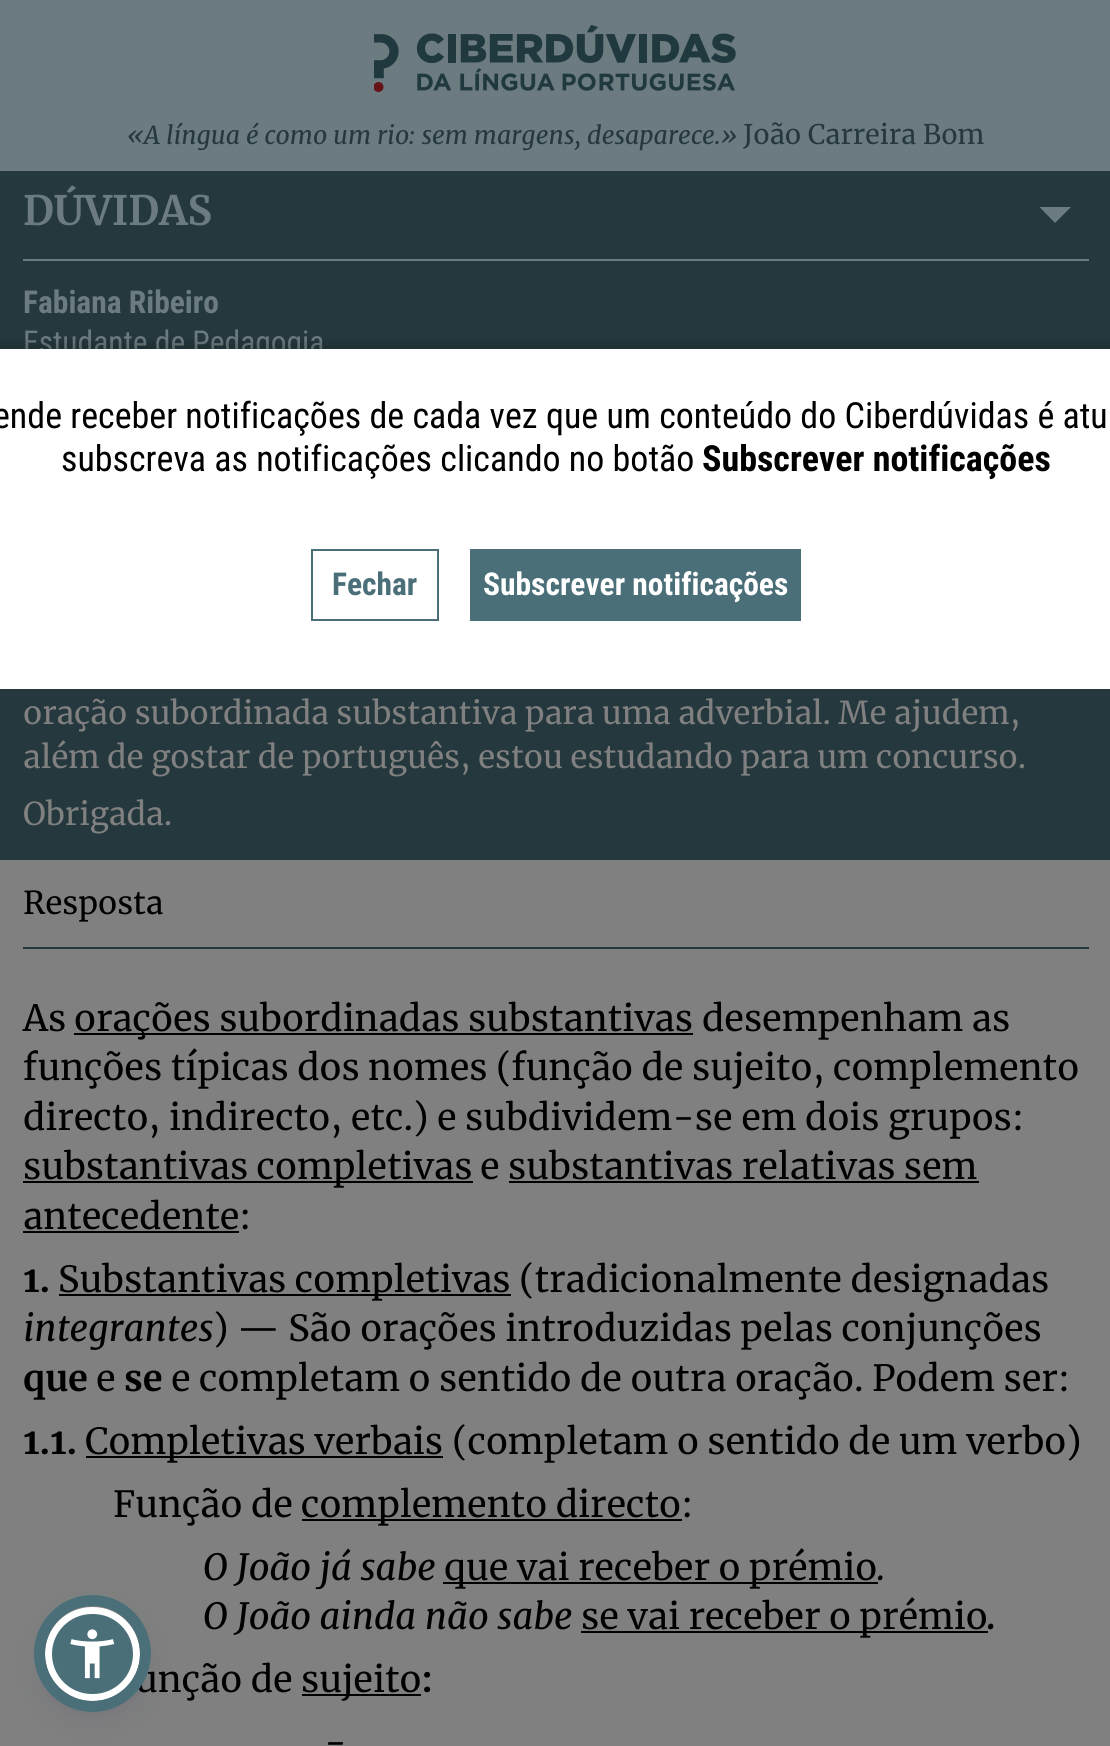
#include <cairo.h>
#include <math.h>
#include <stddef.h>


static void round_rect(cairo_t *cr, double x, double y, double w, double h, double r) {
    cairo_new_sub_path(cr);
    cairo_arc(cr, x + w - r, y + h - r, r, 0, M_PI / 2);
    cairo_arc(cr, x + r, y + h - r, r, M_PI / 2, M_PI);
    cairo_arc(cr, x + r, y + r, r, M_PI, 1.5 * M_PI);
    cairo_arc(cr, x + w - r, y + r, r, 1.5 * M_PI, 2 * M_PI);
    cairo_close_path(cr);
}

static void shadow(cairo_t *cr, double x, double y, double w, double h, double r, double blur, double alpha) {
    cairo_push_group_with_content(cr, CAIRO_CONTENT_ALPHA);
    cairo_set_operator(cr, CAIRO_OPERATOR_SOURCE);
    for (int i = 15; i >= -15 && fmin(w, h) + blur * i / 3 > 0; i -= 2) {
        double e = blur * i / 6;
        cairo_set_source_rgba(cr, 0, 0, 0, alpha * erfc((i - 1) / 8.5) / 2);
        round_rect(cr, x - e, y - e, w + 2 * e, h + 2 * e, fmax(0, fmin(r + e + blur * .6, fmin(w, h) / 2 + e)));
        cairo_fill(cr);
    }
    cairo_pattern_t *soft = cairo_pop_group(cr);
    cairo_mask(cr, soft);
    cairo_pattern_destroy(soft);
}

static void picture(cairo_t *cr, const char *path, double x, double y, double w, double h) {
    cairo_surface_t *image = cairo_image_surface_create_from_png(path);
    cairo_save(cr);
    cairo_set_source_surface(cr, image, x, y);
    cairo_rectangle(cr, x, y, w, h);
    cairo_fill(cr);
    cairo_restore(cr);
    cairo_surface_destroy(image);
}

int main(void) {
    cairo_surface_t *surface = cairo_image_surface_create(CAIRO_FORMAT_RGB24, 1110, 1746);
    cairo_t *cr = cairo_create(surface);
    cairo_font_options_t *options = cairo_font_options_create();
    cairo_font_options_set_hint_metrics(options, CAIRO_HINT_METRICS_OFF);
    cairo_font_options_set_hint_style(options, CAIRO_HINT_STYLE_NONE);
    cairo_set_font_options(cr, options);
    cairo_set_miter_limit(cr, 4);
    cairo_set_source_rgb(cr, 0.502, 0.502, 0.502);
    cairo_paint(cr);
    cairo_set_source_rgb(cr, 0.42, 0.482, 0.502);
    cairo_rectangle(cr, 0, 0, 1110, 171);
    cairo_fill(cr);
    picture(cr, "img1.png", 374, 25, 362, 67);
    cairo_select_font_face(cr, "Merriweather", CAIRO_FONT_SLANT_ITALIC, CAIRO_FONT_WEIGHT_NORMAL);
    cairo_set_font_size(cr, 24.75);
    cairo_set_source_rgb(cr, 0.145, 0.22, 0.239);
    cairo_move_to(cr, 127, 144);
    cairo_show_text(cr, "«A língua é como um rio: sem margens, desaparece.»");
    cairo_select_font_face(cr, "Merriweather", CAIRO_FONT_SLANT_NORMAL, CAIRO_FONT_WEIGHT_NORMAL);
    cairo_set_font_size(cr, 27);
    cairo_move_to(cr, 743, 144);
    cairo_show_text(cr, "João Carreira Bom");
    cairo_rectangle(cr, 0, 171, 1110, 689);
    cairo_fill(cr);
    cairo_set_source_rgb(cr, 0.42, 0.482, 0.502);
    cairo_rectangle(cr, 23, 259, 1066, 2);
    cairo_fill(cr);
    cairo_select_font_face(cr, "Merriweather", CAIRO_FONT_SLANT_NORMAL, CAIRO_FONT_WEIGHT_BOLD);
    cairo_set_font_size(cr, 40.5);
    cairo_move_to(cr, 23, 225);
    cairo_show_text(cr, "DÚVIDAS");
    cairo_new_path(cr);
    cairo_move_to(cr, 1039.5, 207);
    cairo_line_to(cr, 1071, 207);
    cairo_line_to(cr, 1055, 223);
    cairo_close_path(cr);
    cairo_fill(cr);
    cairo_select_font_face(cr, "Roboto Condensed", CAIRO_FONT_SLANT_NORMAL, CAIRO_FONT_WEIGHT_BOLD);
    cairo_set_font_size(cr, 31.5);
    cairo_move_to(cr, 23, 313);
    cairo_show_text(cr, "Fabiana Ribeiro");
    cairo_select_font_face(cr, "Roboto Condensed", CAIRO_FONT_SLANT_NORMAL, CAIRO_FONT_WEIGHT_NORMAL);
    cairo_move_to(cr, 23, 353);
    cairo_show_text(cr, "Estudante de Pedagogia");
    cairo_select_font_face(cr, "Merriweather", CAIRO_FONT_SLANT_NORMAL, CAIRO_FONT_WEIGHT_NORMAL);
    cairo_set_source_rgb(cr, 0.502, 0.502, 0.502);
    cairo_move_to(cr, 23, 724);
    cairo_show_text(cr, "oração subordinada substantiva para uma adverbial. Me ajudem,");
    cairo_move_to(cr, 23, 768);
    cairo_show_text(cr, "além de gostar de português, estou estudando para um concurso.");
    cairo_move_to(cr, 23, 825);
    cairo_show_text(cr, "Obrigada.");
    cairo_set_source_rgb(cr, 0.145, 0.22, 0.239);
    cairo_rectangle(cr, 23, 947, 1066, 2);
    cairo_fill(cr);
    cairo_set_source_rgb(cr, 0, 0, 0);
    cairo_move_to(cr, 23, 914);
    cairo_show_text(cr, "Resposta");
    cairo_set_font_size(cr, 36);
    cairo_move_to(cr, 23, 1031);
    cairo_show_text(cr, "As");
    cairo_rectangle(cr, 74, 1033, 619, 2);
    cairo_fill(cr);
    cairo_move_to(cr, 74, 1031);
    cairo_show_text(cr, "orações subordinadas substantivas");
    cairo_move_to(cr, 702, 1031);
    cairo_show_text(cr, "desempenham as");
    cairo_move_to(cr, 23, 1080);
    cairo_show_text(cr, "funções típicas dos nomes (função de sujeito, complemento");
    cairo_move_to(cr, 23, 1130);
    cairo_show_text(cr, "directo, indirecto, etc.) e subdividem-se em dois grupos:");
    cairo_rectangle(cr, 23, 1181, 450, 2);
    cairo_fill(cr);
    cairo_move_to(cr, 23, 1179);
    cairo_show_text(cr, "substantivas completivas");
    cairo_move_to(cr, 480, 1179);
    cairo_show_text(cr, "e substantivas relativas sem");
    cairo_move_to(cr, 23, 1229);
    cairo_show_text(cr, "antecedente");
    cairo_rectangle(cr, 509, 1181, 470, 2);
    cairo_fill(cr);
    cairo_rectangle(cr, 23, 1231, 216, 2);
    cairo_fill(cr);
    cairo_move_to(cr, 239, 1229);
    cairo_show_text(cr, ":");
    cairo_select_font_face(cr, "Merriweather", CAIRO_FONT_SLANT_NORMAL, CAIRO_FONT_WEIGHT_BOLD);
    cairo_move_to(cr, 23, 1292);
    cairo_show_text(cr, "1.");
    cairo_rectangle(cr, 59, 1294, 452, 2);
    cairo_fill(cr);
    cairo_select_font_face(cr, "Merriweather", CAIRO_FONT_SLANT_NORMAL, CAIRO_FONT_WEIGHT_NORMAL);
    cairo_move_to(cr, 58, 1292);
    cairo_show_text(cr, "Substantivas completivas");
    cairo_move_to(cr, 519, 1292);
    cairo_show_text(cr, "(tradicionalmente designadas");
    cairo_select_font_face(cr, "Merriweather", CAIRO_FONT_SLANT_ITALIC, CAIRO_FONT_WEIGHT_NORMAL);
    cairo_move_to(cr, 23, 1341);
    cairo_show_text(cr, "integrantes");
    cairo_select_font_face(cr, "Merriweather", CAIRO_FONT_SLANT_NORMAL, CAIRO_FONT_WEIGHT_NORMAL);
    cairo_move_to(cr, 213, 1341);
    cairo_show_text(cr, ") — São orações introduzidas pelas conjunções");
    cairo_select_font_face(cr, "Merriweather", CAIRO_FONT_SLANT_NORMAL, CAIRO_FONT_WEIGHT_BOLD);
    cairo_move_to(cr, 23, 1391);
    cairo_show_text(cr, "que");
    cairo_select_font_face(cr, "Merriweather", CAIRO_FONT_SLANT_NORMAL, CAIRO_FONT_WEIGHT_NORMAL);
    cairo_move_to(cr, 96, 1391);
    cairo_show_text(cr, "e");
    cairo_select_font_face(cr, "Merriweather", CAIRO_FONT_SLANT_NORMAL, CAIRO_FONT_WEIGHT_BOLD);
    cairo_move_to(cr, 124, 1391);
    cairo_show_text(cr, "se");
    cairo_select_font_face(cr, "Merriweather", CAIRO_FONT_SLANT_NORMAL, CAIRO_FONT_WEIGHT_NORMAL);
    cairo_move_to(cr, 171, 1391);
    cairo_show_text(cr, "e completam o sentido de outra oração. Podem ser:");
    cairo_select_font_face(cr, "Merriweather", CAIRO_FONT_SLANT_NORMAL, CAIRO_FONT_WEIGHT_BOLD);
    cairo_move_to(cr, 23, 1454);
    cairo_show_text(cr, "1.1.");
    cairo_rectangle(cr, 86, 1456, 357, 2);
    cairo_fill(cr);
    cairo_select_font_face(cr, "Merriweather", CAIRO_FONT_SLANT_NORMAL, CAIRO_FONT_WEIGHT_NORMAL);
    cairo_move_to(cr, 85, 1454);
    cairo_show_text(cr, "Completivas verbais");
    cairo_move_to(cr, 452, 1454);
    cairo_show_text(cr, "(completam o sentido de um verbo)");
    cairo_move_to(cr, 113, 1517);
    cairo_show_text(cr, "Função de");
    cairo_rectangle(cr, 302, 1519, 380, 2);
    cairo_fill(cr);
    cairo_move_to(cr, 301, 1517);
    cairo_show_text(cr, "complemento directo");
    cairo_move_to(cr, 681, 1517);
    cairo_show_text(cr, ":");
    cairo_select_font_face(cr, "Merriweather", CAIRO_FONT_SLANT_ITALIC, CAIRO_FONT_WEIGHT_NORMAL);
    cairo_move_to(cr, 203, 1580);
    cairo_show_text(cr, "O João já sabe");
    cairo_rectangle(cr, 443, 1582, 435, 2);
    cairo_fill(cr);
    cairo_select_font_face(cr, "Merriweather", CAIRO_FONT_SLANT_NORMAL, CAIRO_FONT_WEIGHT_NORMAL);
    cairo_move_to(cr, 444, 1580);
    cairo_show_text(cr, "que vai receber o prémio");
    cairo_select_font_face(cr, "Merriweather", CAIRO_FONT_SLANT_ITALIC, CAIRO_FONT_WEIGHT_NORMAL);
    cairo_move_to(cr, 877, 1580);
    cairo_show_text(cr, ".");
    cairo_move_to(cr, 203, 1629);
    cairo_show_text(cr, "O João ainda não sabe");
    cairo_rectangle(cr, 581, 1631, 407, 2);
    cairo_fill(cr);
    cairo_select_font_face(cr, "Merriweather", CAIRO_FONT_SLANT_NORMAL, CAIRO_FONT_WEIGHT_NORMAL);
    cairo_move_to(cr, 581, 1629);
    cairo_show_text(cr, "se vai receber o prémio");
    cairo_select_font_face(cr, "Merriweather", CAIRO_FONT_SLANT_ITALIC, CAIRO_FONT_WEIGHT_BOLD);
    cairo_move_to(cr, 987, 1629);
    cairo_show_text(cr, ".");
    cairo_select_font_face(cr, "Merriweather", CAIRO_FONT_SLANT_NORMAL, CAIRO_FONT_WEIGHT_NORMAL);
    cairo_move_to(cr, 135, 1692);
    cairo_show_text(cr, "unção de");
    cairo_rectangle(cr, 302, 1694, 119, 2);
    cairo_fill(cr);
    cairo_move_to(cr, 301, 1692);
    cairo_show_text(cr, "sujeito");
    cairo_select_font_face(cr, "Merriweather", CAIRO_FONT_SLANT_NORMAL, CAIRO_FONT_WEIGHT_BOLD);
    cairo_move_to(cr, 421, 1692);
    cairo_show_text(cr, ":");
    cairo_select_font_face(cr, "Merriweather", CAIRO_FONT_SLANT_ITALIC, CAIRO_FONT_WEIGHT_NORMAL);
    cairo_move_to(cr, 324, 1755);
    cairo_show_text(cr, "-");
    cairo_set_source_rgb(cr, 0, 0, 0);
    shadow(cr, -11, 342, 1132, 340, 0, 3.5, 0.15);
    cairo_set_source_rgb(cr, 1, 1, 1);
    cairo_rectangle(cr, 0, 349, 1110, 340);
    cairo_fill(cr);
    cairo_select_font_face(cr, "Roboto Condensed", CAIRO_FONT_SLANT_NORMAL, CAIRO_FONT_WEIGHT_NORMAL);
    cairo_set_source_rgb(cr, 0, 0, 0);
    cairo_move_to(cr, -7, 428);
    cairo_show_text(cr, "ende receber notificações de cada vez que um conteúdo do Ciberdúvidas é atu");
    cairo_move_to(cr, 61, 471);
    cairo_show_text(cr, "subscreva as notificações clicando no botão");
    cairo_select_font_face(cr, "Roboto Condensed", CAIRO_FONT_SLANT_NORMAL, CAIRO_FONT_WEIGHT_BOLD);
    cairo_move_to(cr, 702, 471);
    cairo_show_text(cr, "Subscrever notificações");
    cairo_rectangle(cr, 312, 550, 126, 70);
    cairo_set_source_rgb(cr, 0.29, 0.435, 0.475);
    cairo_stroke(cr);
    cairo_set_font_size(cr, 31.5);
    cairo_move_to(cr, 332, 595);
    cairo_show_text(cr, "Fechar");
    cairo_rectangle(cr, 470, 549, 331, 72);
    cairo_fill(cr);
    cairo_set_source_rgb(cr, 1, 1, 1);
    cairo_move_to(cr, 483, 595);
    cairo_show_text(cr, "Subscrever notificações");
    cairo_set_source_rgb(cr, 0.365, 0.392, 0.58);
    shadow(cr, 45, 1611, 95, 95, 47.5, 4.5, 0.2);
    cairo_set_source_rgb(cr, 0.145, 0.173, 0.38);
    shadow(cr, 45, 1618, 95, 94, 47, 17, 0.15);
    cairo_set_source_rgb(cr, 0.29, 0.435, 0.475);
    round_rect(cr, 48.5, 1610.5, 88, 87, 43.5);
    cairo_fill_preserve(cr);
    cairo_set_source_rgb(cr, 1, 1, 1);
    cairo_set_line_width(cr, 7);
    cairo_stroke(cr);
    cairo_arc(cr, 92.5, 1653.5, 53, 0, 2 * M_PI);
    cairo_set_source_rgb(cr, 0.29, 0.435, 0.475);
    cairo_set_line_width(cr, 11);
    cairo_stroke(cr);
    picture(cr, "img2.png", 70, 1629, 45, 50);
    cairo_surface_write_to_png(surface, "page.png");
    cairo_font_options_destroy(options);
    cairo_destroy(cr);
    cairo_surface_destroy(surface);
    return 0;
}
